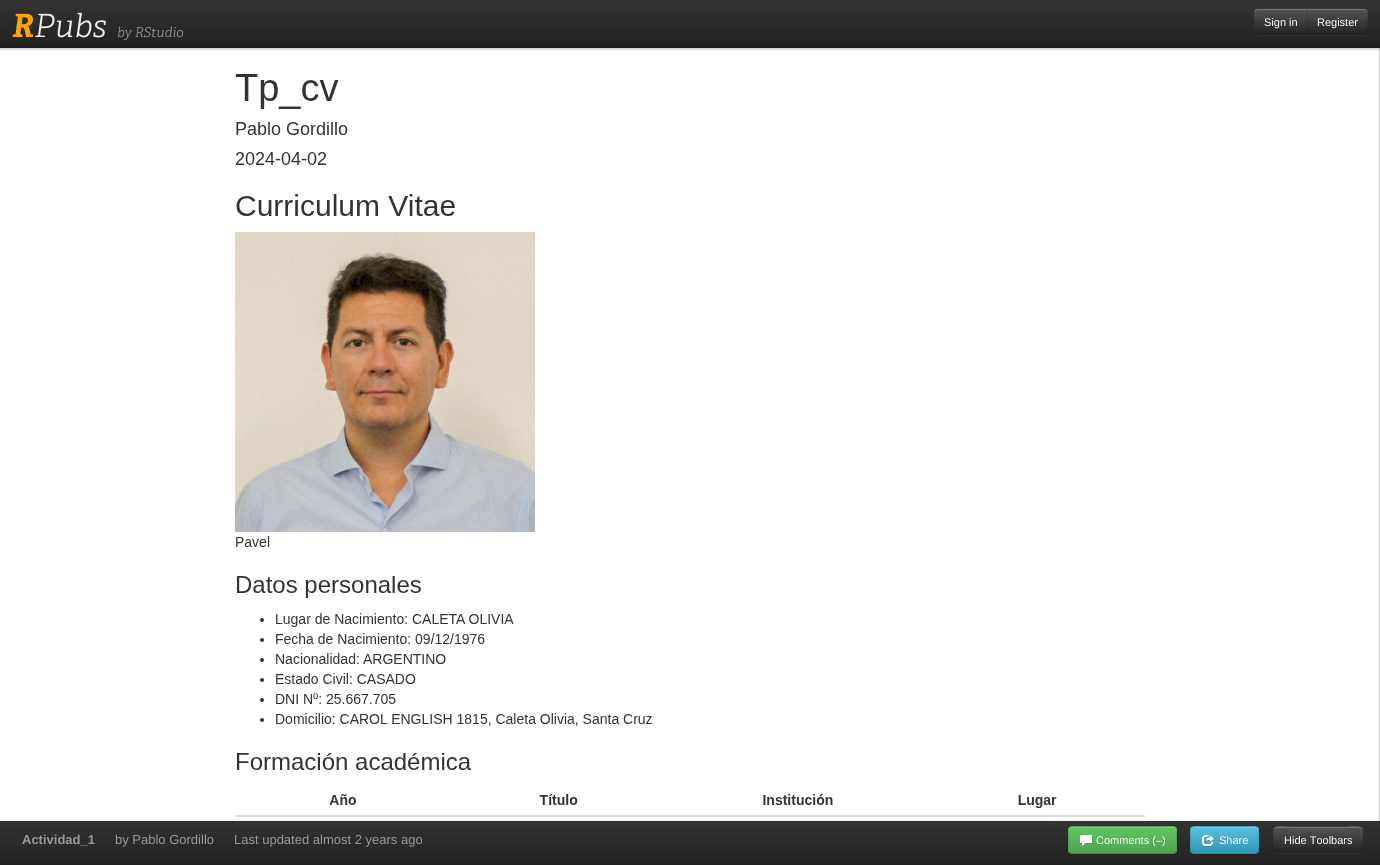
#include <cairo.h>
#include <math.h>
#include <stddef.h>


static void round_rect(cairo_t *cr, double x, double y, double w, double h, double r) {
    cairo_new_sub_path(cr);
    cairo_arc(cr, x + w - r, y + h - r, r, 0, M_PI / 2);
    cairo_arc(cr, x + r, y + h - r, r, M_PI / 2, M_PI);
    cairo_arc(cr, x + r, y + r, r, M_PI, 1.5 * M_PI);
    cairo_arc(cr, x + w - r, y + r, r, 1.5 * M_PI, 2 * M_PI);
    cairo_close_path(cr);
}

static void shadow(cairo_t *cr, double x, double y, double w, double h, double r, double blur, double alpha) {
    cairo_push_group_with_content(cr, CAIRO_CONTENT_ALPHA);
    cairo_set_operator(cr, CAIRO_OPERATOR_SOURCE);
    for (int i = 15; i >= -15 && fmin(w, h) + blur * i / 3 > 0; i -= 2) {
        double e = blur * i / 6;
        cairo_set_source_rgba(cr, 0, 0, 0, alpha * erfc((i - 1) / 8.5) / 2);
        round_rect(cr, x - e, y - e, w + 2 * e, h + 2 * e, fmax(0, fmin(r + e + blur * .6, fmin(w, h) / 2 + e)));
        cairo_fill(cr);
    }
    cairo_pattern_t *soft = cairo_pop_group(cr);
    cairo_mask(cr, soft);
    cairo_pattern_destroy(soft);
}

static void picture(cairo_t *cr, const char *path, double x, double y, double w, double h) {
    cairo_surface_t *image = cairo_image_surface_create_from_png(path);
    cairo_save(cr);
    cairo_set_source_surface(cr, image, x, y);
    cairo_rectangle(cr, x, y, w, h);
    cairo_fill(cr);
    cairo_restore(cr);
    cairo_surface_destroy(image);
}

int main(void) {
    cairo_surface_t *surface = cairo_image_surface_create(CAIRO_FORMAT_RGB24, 1380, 865);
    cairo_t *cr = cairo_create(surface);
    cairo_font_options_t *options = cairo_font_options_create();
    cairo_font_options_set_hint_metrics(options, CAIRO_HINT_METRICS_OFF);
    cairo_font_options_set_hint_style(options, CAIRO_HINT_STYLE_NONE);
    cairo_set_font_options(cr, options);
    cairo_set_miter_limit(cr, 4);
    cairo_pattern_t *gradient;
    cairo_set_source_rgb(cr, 1, 1, 1);
    cairo_paint(cr);
    picture(cr, "img1.png", 0, 48, 1379, 773);
    cairo_set_source_rgb(cr, 0.8, 0.8, 0.8);
    cairo_rectangle(cr, 1379, 48, 1, 777);
    cairo_fill(cr);
    cairo_set_source_rgb(cr, 0, 0, 0);
    shadow(cr, 0, 1, 1380, 48, 0, 1.5, 0.25);
    gradient = cairo_pattern_create_linear(690, 0, 690, 48);
    cairo_pattern_add_color_stop_rgba(gradient, 0, 0.2, 0.2, 0.2, 1);
    cairo_pattern_add_color_stop_rgba(gradient, 1, 0.133, 0.133, 0.133, 1);
    cairo_set_source(cr, gradient);
    cairo_pattern_destroy(gradient);
    cairo_rectangle(cr, 0, 0, 1380, 47);
    cairo_fill(cr);
    cairo_set_source_rgb(cr, 0.122, 0.122, 0.122);
    cairo_rectangle(cr, 0, 47, 1380, 1);
    cairo_fill(cr);
    cairo_select_font_face(cr, "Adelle", CAIRO_FONT_SLANT_ITALIC, CAIRO_FONT_WEIGHT_BOLD);
    cairo_set_font_size(cr, 32);
    cairo_set_source_rgb(cr, 1, 0.647, 0);
    cairo_move_to(cr, 12, 37);
    cairo_show_text(cr, "R");
    cairo_select_font_face(cr, "Adelle Light", CAIRO_FONT_SLANT_ITALIC, CAIRO_FONT_WEIGHT_NORMAL);
    cairo_set_source_rgb(cr, 0.933, 0.933, 0.933);
    cairo_move_to(cr, 34, 37);
    cairo_show_text(cr, "Pubs");
    cairo_set_font_size(cr, 13.5);
    cairo_set_source_rgb(cr, 0.6, 0.6, 0.6);
    cairo_move_to(cr, 117, 37);
    cairo_show_text(cr, "by RStudio");
    cairo_set_source_rgb(cr, 0.255, 0.255, 0.255);
    cairo_new_path(cr);
    cairo_move_to(cr, 1258, 8);
    cairo_line_to(cr, 1308, 8);
    cairo_line_to(cr, 1308, 36);
    cairo_line_to(cr, 1258, 36);
    cairo_curve_to(cr, 1256, 36, 1254, 34, 1254, 32);
    cairo_line_to(cr, 1254, 12);
    cairo_curve_to(cr, 1254, 10, 1256, 8, 1258, 8);
    cairo_close_path(cr);
    cairo_fill(cr);
    cairo_save(cr);
    cairo_new_path(cr);
    cairo_move_to(cr, 1258, 8);
    cairo_line_to(cr, 1308, 8);
    cairo_line_to(cr, 1308, 36);
    cairo_line_to(cr, 1258, 36);
    cairo_curve_to(cr, 1256, 36, 1254, 34, 1254, 32);
    cairo_line_to(cr, 1254, 12);
    cairo_curve_to(cr, 1254, 10, 1256, 8, 1258, 8);
    cairo_close_path(cr);
    cairo_clip(cr);
    gradient = cairo_pattern_create_linear(1281, 9, 1281, 35);
    cairo_pattern_add_color_stop_rgba(gradient, 0, 0.333, 0.333, 0.333, 1);
    cairo_pattern_add_color_stop_rgba(gradient, 1, 0.133, 0.133, 0.133, 1);
    cairo_set_source(cr, gradient);
    cairo_pattern_destroy(gradient);
    cairo_rectangle(cr, 1254, 9, 53, 26);
    cairo_fill(cr);
    cairo_restore(cr);
    cairo_set_source_rgb(cr, 0.463, 0.463, 0.463);
    cairo_new_path(cr);
    cairo_move_to(cr, 1258, 10);
    cairo_line_to(cr, 1307, 10);
    cairo_line_to(cr, 1307, 9);
    cairo_line_to(cr, 1258, 9);
    cairo_curve_to(cr, 1256, 9, 1255, 10, 1255, 12);
    cairo_line_to(cr, 1255, 13);
    cairo_curve_to(cr, 1255, 11, 1256, 10, 1258, 10);
    cairo_close_path(cr);
    cairo_fill(cr);
    cairo_set_source_rgba(cr, 0, 0, 0, 0.1);
    cairo_new_path(cr);
    cairo_move_to(cr, 1258, 8);
    cairo_line_to(cr, 1255, 9);
    cairo_line_to(cr, 1256, 10);
    cairo_curve_to(cr, 1258, 8, 1301, 9, 1307, 9);
    cairo_line_to(cr, 1308, 8);
    cairo_close_path(cr);
    cairo_fill(cr);
    cairo_set_source_rgba(cr, 0, 0, 0, 0.25);
    cairo_new_path(cr);
    cairo_move_to(cr, 1308, 36);
    cairo_line_to(cr, 1307, 35);
    cairo_curve_to(cr, 1301, 35, 1258, 36, 1256, 34);
    cairo_line_to(cr, 1255, 35);
    cairo_line_to(cr, 1258, 36);
    cairo_close_path(cr);
    cairo_fill(cr);
    cairo_set_source_rgba(cr, 0, 0, 0, 0.1);
    cairo_new_path(cr);
    cairo_move_to(cr, 1254, 12);
    cairo_line_to(cr, 1254, 32);
    cairo_curve_to(cr, 1254, 33, 1254.5, 34, 1255, 35);
    cairo_line_to(cr, 1256, 34);
    cairo_curve_to(cr, 1255, 34, 1255, 33, 1255, 32);
    cairo_line_to(cr, 1255, 12);
    cairo_curve_to(cr, 1255, 11, 1255, 10, 1256, 10);
    cairo_line_to(cr, 1255, 9);
    cairo_curve_to(cr, 1254.5, 10, 1254, 11, 1254, 12);
    cairo_close_path(cr);
    cairo_fill(cr);
    cairo_select_font_face(cr, "Liberation Sans", CAIRO_FONT_SLANT_NORMAL, CAIRO_FONT_WEIGHT_NORMAL);
    cairo_set_font_size(cr, 11);
    cairo_set_source_rgb(cr, 1, 1, 1);
    cairo_move_to(cr, 1264, 26);
    cairo_show_text(cr, "Sign in");
    cairo_set_source_rgb(cr, 0.255, 0.255, 0.255);
    cairo_new_path(cr);
    cairo_move_to(cr, 1307, 8);
    cairo_line_to(cr, 1364, 8);
    cairo_curve_to(cr, 1366, 8, 1368, 10, 1368, 12);
    cairo_line_to(cr, 1368, 32);
    cairo_curve_to(cr, 1368, 34, 1366, 36, 1364, 36);
    cairo_line_to(cr, 1307, 36);
    cairo_close_path(cr);
    cairo_fill(cr);
    cairo_save(cr);
    cairo_new_path(cr);
    cairo_move_to(cr, 1307, 8);
    cairo_line_to(cr, 1364, 8);
    cairo_curve_to(cr, 1366, 8, 1368, 10, 1368, 12);
    cairo_line_to(cr, 1368, 32);
    cairo_curve_to(cr, 1368, 34, 1366, 36, 1364, 36);
    cairo_line_to(cr, 1307, 36);
    cairo_close_path(cr);
    cairo_clip(cr);
    gradient = cairo_pattern_create_linear(1338, 9, 1338, 35);
    cairo_pattern_add_color_stop_rgba(gradient, 0, 0.333, 0.333, 0.333, 1);
    cairo_pattern_add_color_stop_rgba(gradient, 1, 0.133, 0.133, 0.133, 1);
    cairo_set_source(cr, gradient);
    cairo_pattern_destroy(gradient);
    cairo_rectangle(cr, 1307, 9, 61, 26);
    cairo_fill(cr);
    cairo_restore(cr);
    cairo_set_source_rgb(cr, 0.463, 0.463, 0.463);
    cairo_new_path(cr);
    cairo_move_to(cr, 1308, 10);
    cairo_line_to(cr, 1364, 10);
    cairo_curve_to(cr, 1366, 10, 1367, 11, 1367, 13);
    cairo_line_to(cr, 1367, 12);
    cairo_curve_to(cr, 1367, 10, 1366, 9, 1364, 9);
    cairo_line_to(cr, 1308, 9);
    cairo_close_path(cr);
    cairo_fill(cr);
    cairo_set_source_rgba(cr, 0, 0, 0, 0.1);
    cairo_new_path(cr);
    cairo_move_to(cr, 1307, 8);
    cairo_line_to(cr, 1308, 9);
    cairo_curve_to(cr, 1315, 9, 1364, 8, 1366, 10);
    cairo_line_to(cr, 1367, 9);
    cairo_line_to(cr, 1364, 8);
    cairo_close_path(cr);
    cairo_fill(cr);
    cairo_new_path(cr);
    cairo_move_to(cr, 1368, 32);
    cairo_line_to(cr, 1368, 12);
    cairo_curve_to(cr, 1368, 11, 1367.5, 10, 1367, 9);
    cairo_line_to(cr, 1366, 10);
    cairo_curve_to(cr, 1367, 10, 1367, 11, 1367, 12);
    cairo_line_to(cr, 1367, 32);
    cairo_curve_to(cr, 1367, 33, 1367, 34, 1366, 34);
    cairo_line_to(cr, 1367, 35);
    cairo_curve_to(cr, 1367.5, 34, 1368, 33, 1368, 32);
    cairo_close_path(cr);
    cairo_fill(cr);
    cairo_set_source_rgba(cr, 0, 0, 0, 0.25);
    cairo_new_path(cr);
    cairo_move_to(cr, 1364, 36);
    cairo_line_to(cr, 1367, 35);
    cairo_line_to(cr, 1366, 34);
    cairo_curve_to(cr, 1364, 36, 1315, 35, 1308, 35);
    cairo_line_to(cr, 1307, 36);
    cairo_close_path(cr);
    cairo_fill(cr);
    cairo_set_source_rgba(cr, 0, 0, 0, 0.1);
    cairo_new_path(cr);
    cairo_move_to(cr, 1307, 8);
    cairo_line_to(cr, 1307, 36);
    cairo_line_to(cr, 1308, 35);
    cairo_line_to(cr, 1308, 9);
    cairo_close_path(cr);
    cairo_fill(cr);
    cairo_set_source_rgb(cr, 1, 1, 1);
    cairo_move_to(cr, 1317, 26);
    cairo_show_text(cr, "Register");
    cairo_set_source_rgb(cr, 0, 0, 0);
    shadow(cr, 0, 822, 1380, 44, 0, 1.5, 0.25);
    gradient = cairo_pattern_create_linear(690, 821, 690, 865);
    cairo_pattern_add_color_stop_rgba(gradient, 0, 0.2, 0.2, 0.2, 1);
    cairo_pattern_add_color_stop_rgba(gradient, 1, 0.133, 0.133, 0.133, 1);
    cairo_set_source(cr, gradient);
    cairo_pattern_destroy(gradient);
    cairo_rectangle(cr, 0, 821, 1380, 43);
    cairo_fill(cr);
    cairo_set_source_rgb(cr, 0.122, 0.122, 0.122);
    cairo_rectangle(cr, 0, 864, 1380, 1);
    cairo_fill(cr);
    cairo_select_font_face(cr, "Liberation Sans", CAIRO_FONT_SLANT_NORMAL, CAIRO_FONT_WEIGHT_BOLD);
    cairo_set_font_size(cr, 13);
    cairo_set_source_rgb(cr, 0.6, 0.6, 0.6);
    cairo_move_to(cr, 22, 844);
    cairo_show_text(cr, "Actividad_1");
    cairo_select_font_face(cr, "Liberation Sans", CAIRO_FONT_SLANT_NORMAL, CAIRO_FONT_WEIGHT_NORMAL);
    cairo_move_to(cr, 115, 844);
    cairo_show_text(cr, "by Pablo Gordillo");
    cairo_move_to(cr, 234, 844);
    cairo_show_text(cr, "Last updated almost 2 years ago");
    cairo_set_source_rgb(cr, 0.357, 0.718, 0.357);
    round_rect(cr, 1068, 826, 109, 28, 4);
    cairo_fill(cr);
    cairo_save(cr);
    round_rect(cr, 1068, 826, 109, 28, 4);
    cairo_clip(cr);
    gradient = cairo_pattern_create_linear(1123, 827, 1123, 853);
    cairo_pattern_add_color_stop_rgba(gradient, 0, 0.384, 0.769, 0.384, 1);
    cairo_pattern_add_color_stop_rgba(gradient, 1, 0.318, 0.639, 0.318, 1);
    cairo_set_source(cr, gradient);
    cairo_pattern_destroy(gradient);
    cairo_rectangle(cr, 1068, 827, 109, 26);
    cairo_fill(cr);
    cairo_restore(cr);
    cairo_set_source_rgb(cr, 0.506, 0.812, 0.506);
    cairo_set_fill_rule(cr, CAIRO_FILL_RULE_EVEN_ODD);
    cairo_new_path(cr);
    cairo_move_to(cr, 1072, 828);
    cairo_line_to(cr, 1174, 828);
    cairo_curve_to(cr, 1175, 828, 1176, 830, 1176, 831);
    cairo_line_to(cr, 1176, 830);
    cairo_curve_to(cr, 1176, 828, 1175, 827, 1173, 827);
    cairo_line_to(cr, 1072, 827);
    cairo_curve_to(cr, 1070, 827, 1069, 828, 1069, 830);
    cairo_curve_to(cr, 1069, 829, 1070, 828, 1072, 828);
    cairo_close_path(cr);
    cairo_move_to(cr, 1176, 848);
    cairo_line_to(cr, 1176, 851);
    cairo_close_path(cr);
    cairo_fill(cr);
    cairo_new_path(cr);
    cairo_move_to(cr, 1175.5, 852.5);
    cairo_line_to(cr, 1173.5, 853.5);
    cairo_line_to(cr, 1089, 853.5);
    cairo_line_to(cr, 1072, 853.5);
    cairo_line_to(cr, 1069.5, 852.5);
    cairo_set_source_rgba(cr, 0, 0, 0, 0.25);
    cairo_set_line_width(cr, 1);
    cairo_stroke(cr);
    cairo_new_path(cr);
    cairo_move_to(cr, 1069.5, 852.5);
    cairo_curve_to(cr, 1067.5, 850.5, 1068.5, 846, 1068.5, 843.5);
    cairo_curve_to(cr, 1068.5, 822.5, 1065.5, 826.5, 1089, 826.5);
    cairo_line_to(cr, 1156, 826.5);
    cairo_curve_to(cr, 1179.5, 826.5, 1176.5, 822.5, 1176.5, 843.5);
    cairo_curve_to(cr, 1176.5, 846, 1177.5, 850.5, 1175.5, 852.5);
    cairo_set_source_rgba(cr, 0, 0, 0, 0.1);
    cairo_stroke(cr);
    picture(cr, "img2.png", 1080, 835, 12, 12);
    cairo_set_font_size(cr, 11);
    cairo_set_source_rgb(cr, 1, 1, 1);
    cairo_move_to(cr, 1096, 844);
    cairo_show_text(cr, "Comments (–)");
    cairo_set_source_rgb(cr, 0.286, 0.686, 0.804);
    round_rect(cr, 1190, 826, 69, 28, 4);
    cairo_fill(cr);
    cairo_save(cr);
    cairo_set_fill_rule(cr, CAIRO_FILL_RULE_WINDING);
    round_rect(cr, 1190, 826, 69, 28, 4);
    cairo_clip(cr);
    gradient = cairo_pattern_create_linear(1225, 827, 1225, 853);
    cairo_pattern_add_color_stop_rgba(gradient, 0, 0.357, 0.753, 0.871, 1);
    cairo_pattern_add_color_stop_rgba(gradient, 1, 0.184, 0.588, 0.706, 1);
    cairo_set_source(cr, gradient);
    cairo_pattern_destroy(gradient);
    cairo_rectangle(cr, 1190, 827, 69, 26);
    cairo_fill(cr);
    cairo_restore(cr);
    cairo_set_source_rgba(cr, 1, 1, 1, 0.2);
    cairo_set_fill_rule(cr, CAIRO_FILL_RULE_WINDING);
    cairo_new_path(cr);
    cairo_move_to(cr, 1194, 828);
    cairo_line_to(cr, 1255, 828);
    cairo_curve_to(cr, 1257, 828, 1258, 829, 1258, 831);
    cairo_curve_to(cr, 1258, 824, 1249, 827, 1245, 827);
    cairo_line_to(cr, 1204, 827);
    cairo_curve_to(cr, 1200, 827, 1191, 824, 1191, 831);
    cairo_curve_to(cr, 1191, 829, 1192, 828, 1194, 828);
    cairo_close_path(cr);
    cairo_fill(cr);
    cairo_new_path(cr);
    cairo_move_to(cr, 1257.5, 852.5);
    cairo_line_to(cr, 1255.5, 853.5);
    cairo_line_to(cr, 1193.5, 853.5);
    cairo_line_to(cr, 1191.5, 852.5);
    cairo_set_source_rgba(cr, 0, 0, 0, 0.25);
    cairo_stroke(cr);
    cairo_new_path(cr);
    cairo_move_to(cr, 1191.5, 852.5);
    cairo_curve_to(cr, 1189.5, 850, 1190.5, 842.5, 1190.5, 840);
    cairo_curve_to(cr, 1190.5, 825, 1188.5, 826.5, 1204, 826.5);
    cairo_line_to(cr, 1245, 826.5);
    cairo_curve_to(cr, 1260.5, 826.5, 1258.5, 825, 1258.5, 840);
    cairo_curve_to(cr, 1258.5, 842.5, 1259.5, 850, 1257.5, 852.5);
    cairo_set_source_rgba(cr, 0, 0, 0, 0.1);
    cairo_stroke(cr);
    picture(cr, "img3.png", 1202, 835, 12, 12);
    cairo_set_source_rgb(cr, 1, 1, 1);
    cairo_move_to(cr, 1219, 844);
    cairo_show_text(cr, "Share");
    cairo_set_source_rgb(cr, 0.255, 0.255, 0.255);
    round_rect(cr, 1273, 826, 90, 28, 4);
    cairo_fill(cr);
    cairo_save(cr);
    round_rect(cr, 1273, 826, 90, 28, 4);
    cairo_clip(cr);
    gradient = cairo_pattern_create_linear(1318, 827, 1318, 853);
    cairo_pattern_add_color_stop_rgba(gradient, 0, 0.333, 0.333, 0.333, 1);
    cairo_pattern_add_color_stop_rgba(gradient, 1, 0.133, 0.133, 0.133, 1);
    cairo_set_source(cr, gradient);
    cairo_pattern_destroy(gradient);
    cairo_rectangle(cr, 1273, 827, 90, 26);
    cairo_fill(cr);
    cairo_restore(cr);
    cairo_set_source_rgba(cr, 1, 1, 1, 0.2);
    cairo_new_path(cr);
    cairo_move_to(cr, 1277, 828);
    cairo_line_to(cr, 1359, 828);
    cairo_curve_to(cr, 1361, 828, 1362, 829, 1362, 831);
    cairo_curve_to(cr, 1362, 823, 1349, 827, 1345, 827);
    cairo_line_to(cr, 1291, 827);
    cairo_curve_to(cr, 1287, 827, 1274, 823, 1274, 831);
    cairo_curve_to(cr, 1274, 829, 1275, 828, 1277, 828);
    cairo_close_path(cr);
    cairo_fill(cr);
    cairo_new_path(cr);
    cairo_move_to(cr, 1361.5, 852.5);
    cairo_line_to(cr, 1359.5, 853.5);
    cairo_line_to(cr, 1276.5, 853.5);
    cairo_line_to(cr, 1274.5, 852.5);
    cairo_set_source_rgba(cr, 0, 0, 0, 0.25);
    cairo_stroke(cr);
    cairo_new_path(cr);
    cairo_move_to(cr, 1274.5, 852.5);
    cairo_curve_to(cr, 1272.5, 850.5, 1273.5, 846, 1273.5, 843.5);
    cairo_curve_to(cr, 1273.5, 824, 1270.5, 826.5, 1290.5, 826.5);
    cairo_line_to(cr, 1345.5, 826.5);
    cairo_curve_to(cr, 1365.5, 826.5, 1362.5, 824, 1362.5, 843.5);
    cairo_curve_to(cr, 1362.5, 846, 1363.5, 850.5, 1361.5, 852.5);
    cairo_set_source_rgba(cr, 0, 0, 0, 0.1);
    cairo_stroke(cr);
    cairo_set_source_rgb(cr, 1, 1, 1);
    cairo_move_to(cr, 1284, 844);
    cairo_show_text(cr, "Hide Toolbars");
    cairo_surface_write_to_png(surface, "page.png");
    cairo_font_options_destroy(options);
    cairo_destroy(cr);
    cairo_surface_destroy(surface);
    return 0;
}
